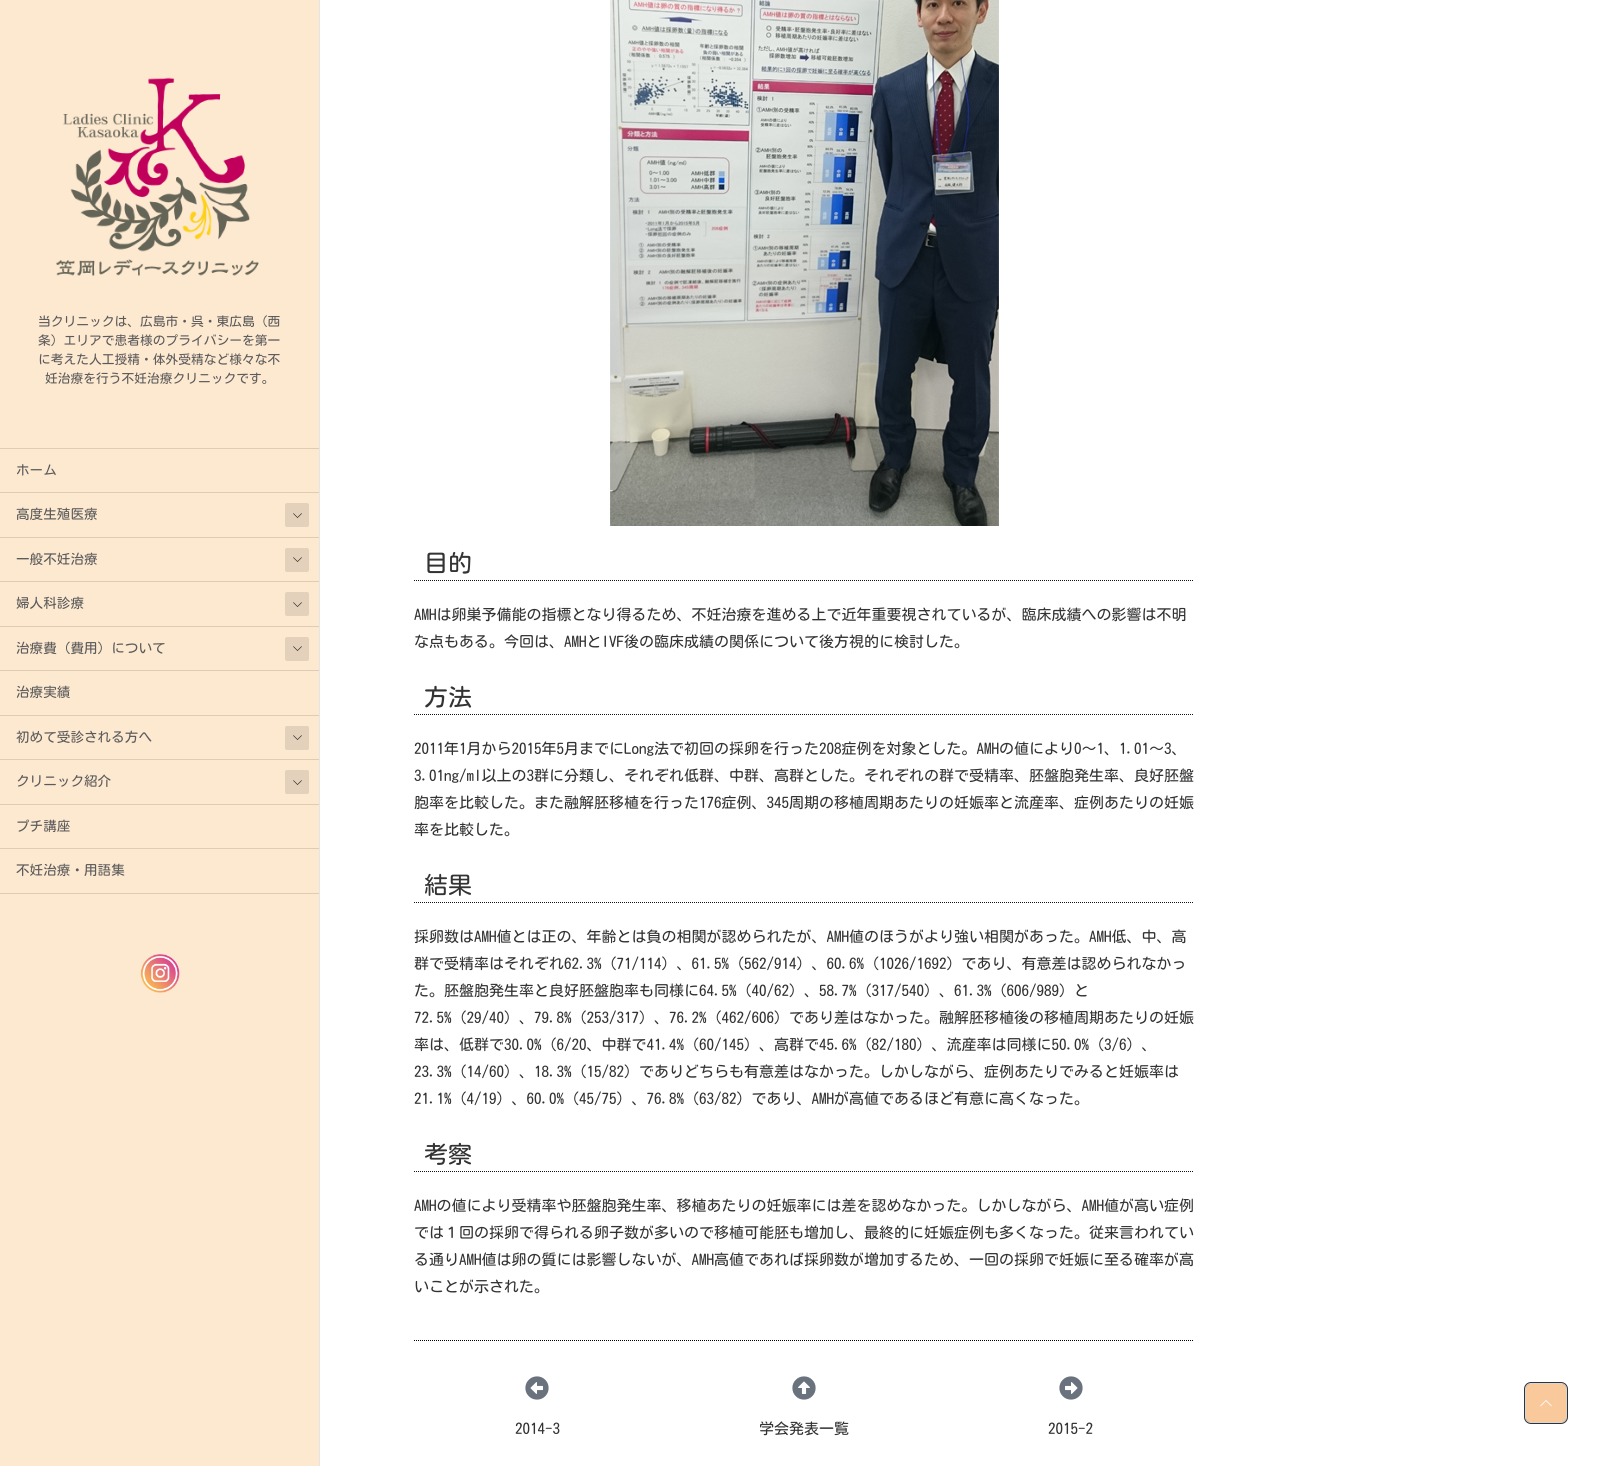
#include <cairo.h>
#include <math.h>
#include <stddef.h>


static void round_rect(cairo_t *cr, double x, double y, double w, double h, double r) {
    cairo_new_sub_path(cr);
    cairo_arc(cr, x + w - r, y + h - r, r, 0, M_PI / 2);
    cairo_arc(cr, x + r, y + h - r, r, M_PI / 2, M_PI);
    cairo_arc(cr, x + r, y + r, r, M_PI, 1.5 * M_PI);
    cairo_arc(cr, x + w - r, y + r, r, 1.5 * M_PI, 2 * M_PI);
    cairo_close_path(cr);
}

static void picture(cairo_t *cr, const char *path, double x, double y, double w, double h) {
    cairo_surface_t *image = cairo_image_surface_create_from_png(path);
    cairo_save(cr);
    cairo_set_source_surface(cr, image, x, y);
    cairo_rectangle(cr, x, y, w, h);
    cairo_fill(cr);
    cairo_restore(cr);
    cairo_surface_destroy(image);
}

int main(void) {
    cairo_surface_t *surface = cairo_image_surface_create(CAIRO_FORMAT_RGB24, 1598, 1466);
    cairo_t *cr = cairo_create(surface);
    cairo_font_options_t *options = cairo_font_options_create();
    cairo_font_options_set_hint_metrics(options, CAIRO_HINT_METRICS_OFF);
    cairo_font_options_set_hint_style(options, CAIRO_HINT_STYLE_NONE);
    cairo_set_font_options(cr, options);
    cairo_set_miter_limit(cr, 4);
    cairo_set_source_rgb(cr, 1, 1, 1);
    cairo_paint(cr);
    cairo_set_source_rgb(cr, 0.992, 0.91, 0.816);
    cairo_rectangle(cr, 0, 0, 319, 1466);
    cairo_fill(cr);
    cairo_set_source_rgb(cr, 0.898, 0.898, 0.898);
    cairo_rectangle(cr, 319, 0, 1, 1466);
    cairo_fill(cr);
    picture(cr, "img1.png", 56, 77, 203, 199);
    cairo_select_font_face(cr, "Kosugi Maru", CAIRO_FONT_SLANT_NORMAL, CAIRO_FONT_WEIGHT_NORMAL);
    cairo_set_font_size(cr, 12.75);
    cairo_set_source_rgb(cr, 0.357, 0.357, 0.357);
    cairo_move_to(cr, 38, 326);
    cairo_show_text(cr, "当クリニックは、広島市・呉・東広島（西");
    cairo_move_to(cr, 38, 345);
    cairo_show_text(cr, "条）エリアで患者様のプライバシーを第一");
    cairo_move_to(cr, 38, 364);
    cairo_show_text(cr, "に考えた人工授精・体外受精など様々な不");
    cairo_move_to(cr, 45, 383);
    cairo_show_text(cr, "妊治療を行う不妊治療クリニックです。");
    cairo_set_source_rgb(cr, 0.875, 0.8, 0.718);
    cairo_rectangle(cr, 0, 448, 319, 1);
    cairo_fill(cr);
    cairo_set_font_size(cr, 13.6);
    cairo_set_source_rgb(cr, 0.357, 0.357, 0.357);
    cairo_move_to(cr, 16, 475);
    cairo_show_text(cr, "ホーム");
    cairo_set_source_rgb(cr, 0.875, 0.8, 0.718);
    cairo_rectangle(cr, 0, 492, 319, 1);
    cairo_fill(cr);
    cairo_set_source_rgb(cr, 0.357, 0.357, 0.357);
    cairo_move_to(cr, 16, 519);
    cairo_show_text(cr, "高度生殖医療");
    cairo_set_source_rgb(cr, 0.894, 0.82, 0.733);
    round_rect(cr, 285, 503, 24, 24, 2);
    cairo_fill(cr);
    picture(cr, "img2.png", 293, 513, 9, 5);
    cairo_set_source_rgb(cr, 0.875, 0.8, 0.718);
    cairo_rectangle(cr, 0, 537, 319, 1);
    cairo_fill(cr);
    cairo_set_source_rgb(cr, 0.357, 0.357, 0.357);
    cairo_move_to(cr, 16, 564);
    cairo_show_text(cr, "一般不妊治療");
    cairo_set_source_rgb(cr, 0.894, 0.82, 0.733);
    round_rect(cr, 285, 548, 24, 24, 2);
    cairo_fill(cr);
    picture(cr, "img2.png", 293, 557, 9, 5);
    cairo_set_source_rgb(cr, 0.875, 0.8, 0.718);
    cairo_rectangle(cr, 0, 581, 319, 1);
    cairo_fill(cr);
    cairo_set_source_rgb(cr, 0.357, 0.357, 0.357);
    cairo_move_to(cr, 16, 608);
    cairo_show_text(cr, "婦人科診療");
    cairo_set_source_rgb(cr, 0.894, 0.82, 0.733);
    round_rect(cr, 285, 592, 24, 24, 2);
    cairo_fill(cr);
    picture(cr, "img2.png", 293, 602, 9, 5);
    cairo_set_source_rgb(cr, 0.875, 0.8, 0.718);
    cairo_rectangle(cr, 0, 626, 319, 1);
    cairo_fill(cr);
    cairo_set_source_rgb(cr, 0.357, 0.357, 0.357);
    cairo_move_to(cr, 16, 653);
    cairo_show_text(cr, "治療費（費用）について");
    cairo_set_source_rgb(cr, 0.894, 0.82, 0.733);
    round_rect(cr, 285, 637, 24, 24, 2);
    cairo_fill(cr);
    picture(cr, "img2.png", 293, 646, 9, 5);
    cairo_set_source_rgb(cr, 0.875, 0.8, 0.718);
    cairo_rectangle(cr, 0, 670, 319, 1);
    cairo_fill(cr);
    cairo_set_source_rgb(cr, 0.357, 0.357, 0.357);
    cairo_move_to(cr, 16, 697);
    cairo_show_text(cr, "治療実績");
    cairo_set_source_rgb(cr, 0.875, 0.8, 0.718);
    cairo_rectangle(cr, 0, 715, 319, 1);
    cairo_fill(cr);
    cairo_set_source_rgb(cr, 0.357, 0.357, 0.357);
    cairo_move_to(cr, 16, 742);
    cairo_show_text(cr, "初めて受診される方へ");
    cairo_set_source_rgb(cr, 0.894, 0.82, 0.733);
    round_rect(cr, 285, 726, 24, 24, 2);
    cairo_fill(cr);
    picture(cr, "img2.png", 293, 735, 9, 5);
    cairo_set_source_rgb(cr, 0.875, 0.8, 0.718);
    cairo_rectangle(cr, 0, 759, 319, 1);
    cairo_fill(cr);
    cairo_set_source_rgb(cr, 0.357, 0.357, 0.357);
    cairo_move_to(cr, 16, 786);
    cairo_show_text(cr, "クリニック紹介");
    cairo_set_source_rgb(cr, 0.894, 0.82, 0.733);
    round_rect(cr, 285, 770, 24, 24, 2);
    cairo_fill(cr);
    picture(cr, "img2.png", 293, 780, 9, 5);
    cairo_set_source_rgb(cr, 0.875, 0.8, 0.718);
    cairo_rectangle(cr, 0, 804, 319, 1);
    cairo_fill(cr);
    cairo_set_source_rgb(cr, 0.357, 0.357, 0.357);
    cairo_move_to(cr, 16, 831);
    cairo_show_text(cr, "プチ講座");
    cairo_set_source_rgb(cr, 0.875, 0.8, 0.718);
    cairo_rectangle(cr, 0, 848, 319, 1);
    cairo_fill(cr);
    cairo_rectangle(cr, 0, 893, 319, 1);
    cairo_fill(cr);
    cairo_set_source_rgb(cr, 0.357, 0.357, 0.357);
    cairo_move_to(cr, 16, 875);
    cairo_show_text(cr, "不妊治療・用語集");
    picture(cr, "img3.png", 140, 954, 40, 39);
    picture(cr, "img4.png", 610, 0, 389, 526);
    cairo_new_path(cr);
    cairo_move_to(cr, 414, 580.5);
    cairo_line_to(cr, 1194, 580.5);
    cairo_set_source_rgb(cr, 0.067, 0.067, 0.067);
    cairo_set_line_width(cr, 1);
    cairo_set_dash(cr, (double[]){1, 1}, 2, 0);
    cairo_stroke(cr);
    cairo_set_font_size(cr, 24);
    cairo_set_source_rgb(cr, 0.2, 0.2, 0.2);
    cairo_move_to(cr, 424, 572);
    cairo_show_text(cr, "目的");
    cairo_set_font_size(cr, 15);
    cairo_move_to(cr, 414, 620);
    cairo_show_text(cr, "AMHは卵巣予備能の指標となり得るため、不妊治療を進める上で近年重要視されているが、臨床成績への影響は不明");
    cairo_move_to(cr, 414, 647);
    cairo_show_text(cr, "な点もある。今回は、AMHとIVF後の臨床成績の関係について後方視的に検討した。");
    cairo_new_path(cr);
    cairo_move_to(cr, 414, 714.5);
    cairo_line_to(cr, 1194, 714.5);
    cairo_set_source_rgb(cr, 0.067, 0.067, 0.067);
    cairo_stroke(cr);
    cairo_set_font_size(cr, 24);
    cairo_set_source_rgb(cr, 0.2, 0.2, 0.2);
    cairo_move_to(cr, 424, 706);
    cairo_show_text(cr, "方法");
    cairo_set_font_size(cr, 15);
    cairo_move_to(cr, 414, 754);
    cairo_show_text(cr, "2011年1月から2015年5月までにLong法で初回の採卵を行った208症例を対象とした。AMHの値により0～1、1.01～3、");
    cairo_move_to(cr, 414, 781);
    cairo_show_text(cr, "3.01ng/ml以上の3群に分類し、それぞれ低群、中群、高群とした。それぞれの群で受精率、胚盤胞発生率、良好胚盤");
    cairo_move_to(cr, 414, 808);
    cairo_show_text(cr, "胞率を比較した。また融解胚移植を行った176症例、345周期の移植周期あたりの妊娠率と流産率、症例あたりの妊娠");
    cairo_move_to(cr, 414, 835);
    cairo_show_text(cr, "率を比較した。");
    cairo_new_path(cr);
    cairo_move_to(cr, 414, 902.5);
    cairo_line_to(cr, 1194, 902.5);
    cairo_set_source_rgb(cr, 0.067, 0.067, 0.067);
    cairo_stroke(cr);
    cairo_set_font_size(cr, 24);
    cairo_set_source_rgb(cr, 0.2, 0.2, 0.2);
    cairo_move_to(cr, 424, 894);
    cairo_show_text(cr, "結果");
    cairo_set_font_size(cr, 15);
    cairo_move_to(cr, 414, 942);
    cairo_show_text(cr, "採卵数はAMH値とは正の、年齢とは負の相関が認められたが、AMH値のほうがより強い相関があった。AMH低、中、高");
    cairo_move_to(cr, 414, 969);
    cairo_show_text(cr, "群で受精率はそれぞれ62.3%（71/114）、61.5%（562/914）、60.6%（1026/1692）であり、有意差は認められなかっ");
    cairo_move_to(cr, 414, 996);
    cairo_show_text(cr, "た。胚盤胞発生率と良好胚盤胞率も同様に64.5%（40/62）、58.7%（317/540）、61.3%（606/989）と");
    cairo_move_to(cr, 414, 1023);
    cairo_show_text(cr, "72.5%（29/40）、79.8%（253/317）、76.2%（462/606）であり差はなかった。融解胚移植後の移植周期あたりの妊娠");
    cairo_move_to(cr, 414, 1050);
    cairo_show_text(cr, "率は、低群で30.0%（6/20、中群で41.4%（60/145）、高群で45.6%（82/180）、流産率は同様に50.0%（3/6）、");
    cairo_move_to(cr, 414, 1077);
    cairo_show_text(cr, "23.3%（14/60）、18.3%（15/82）でありどちらも有意差はなかった。しかしながら、症例あたりでみると妊娠率は");
    cairo_move_to(cr, 414, 1104);
    cairo_show_text(cr, "21.1%（4/19）、60.0%（45/75）、76.8%（63/82）であり、AMHが高値であるほど有意に高くなった。");
    cairo_new_path(cr);
    cairo_move_to(cr, 414, 1171.5);
    cairo_line_to(cr, 1194, 1171.5);
    cairo_set_source_rgb(cr, 0.067, 0.067, 0.067);
    cairo_stroke(cr);
    cairo_set_font_size(cr, 24);
    cairo_set_source_rgb(cr, 0.2, 0.2, 0.2);
    cairo_move_to(cr, 424, 1163);
    cairo_show_text(cr, "考察");
    cairo_set_font_size(cr, 15);
    cairo_move_to(cr, 414, 1211);
    cairo_show_text(cr, "AMHの値により受精率や胚盤胞発生率、移植あたりの妊娠率には差を認めなかった。しかしながら、AMH値が高い症例");
    cairo_move_to(cr, 414, 1238);
    cairo_show_text(cr, "では１回の採卵で得られる卵子数が多いので移植可能胚も増加し、最終的に妊娠症例も多くなった。従来言われてい");
    cairo_move_to(cr, 414, 1265);
    cairo_show_text(cr, "る通りAMH値は卵の質には影響しないが、AMH高値であれば採卵数が増加するため、一回の採卵で妊娠に至る確率が高");
    cairo_move_to(cr, 414, 1292);
    cairo_show_text(cr, "いことが示された。");
    cairo_new_path(cr);
    cairo_move_to(cr, 414, 1340.5);
    cairo_line_to(cr, 1194, 1340.5);
    cairo_set_source_rgb(cr, 0, 0, 0);
    cairo_stroke(cr);
    picture(cr, "img5.png", 525, 1376, 24, 24);
    cairo_set_source_rgb(cr, 0.2, 0.2, 0.2);
    cairo_move_to(cr, 515, 1434);
    cairo_show_text(cr, "2014-3");
    picture(cr, "img6.png", 792, 1376, 24, 24);
    cairo_move_to(cr, 759, 1434);
    cairo_show_text(cr, "学会発表一覧");
    picture(cr, "img7.png", 1059, 1376, 24, 24);
    cairo_move_to(cr, 1048, 1434);
    cairo_show_text(cr, "2015-2");
    round_rect(cr, 1525, 1383, 42, 40, 6);
    cairo_set_line_width(cr, 2);
    cairo_set_dash(cr, NULL, 0, 0);
    cairo_stroke(cr);
    round_rect(cr, 1525.5, 1383.5, 41, 39, 5.5);
    cairo_set_source_rgba(cr, 1, 1, 1, 0.8);
    cairo_set_line_width(cr, 1);
    cairo_stroke(cr);
    cairo_set_source_rgb(cr, 0.976, 0.784, 0.608);
    round_rect(cr, 1526, 1384, 40, 38, 5);
    cairo_fill(cr);
    picture(cr, "img8.png", 1540, 1400, 12, 7);
    cairo_surface_write_to_png(surface, "page.png");
    cairo_font_options_destroy(options);
    cairo_destroy(cr);
    cairo_surface_destroy(surface);
    return 0;
}
